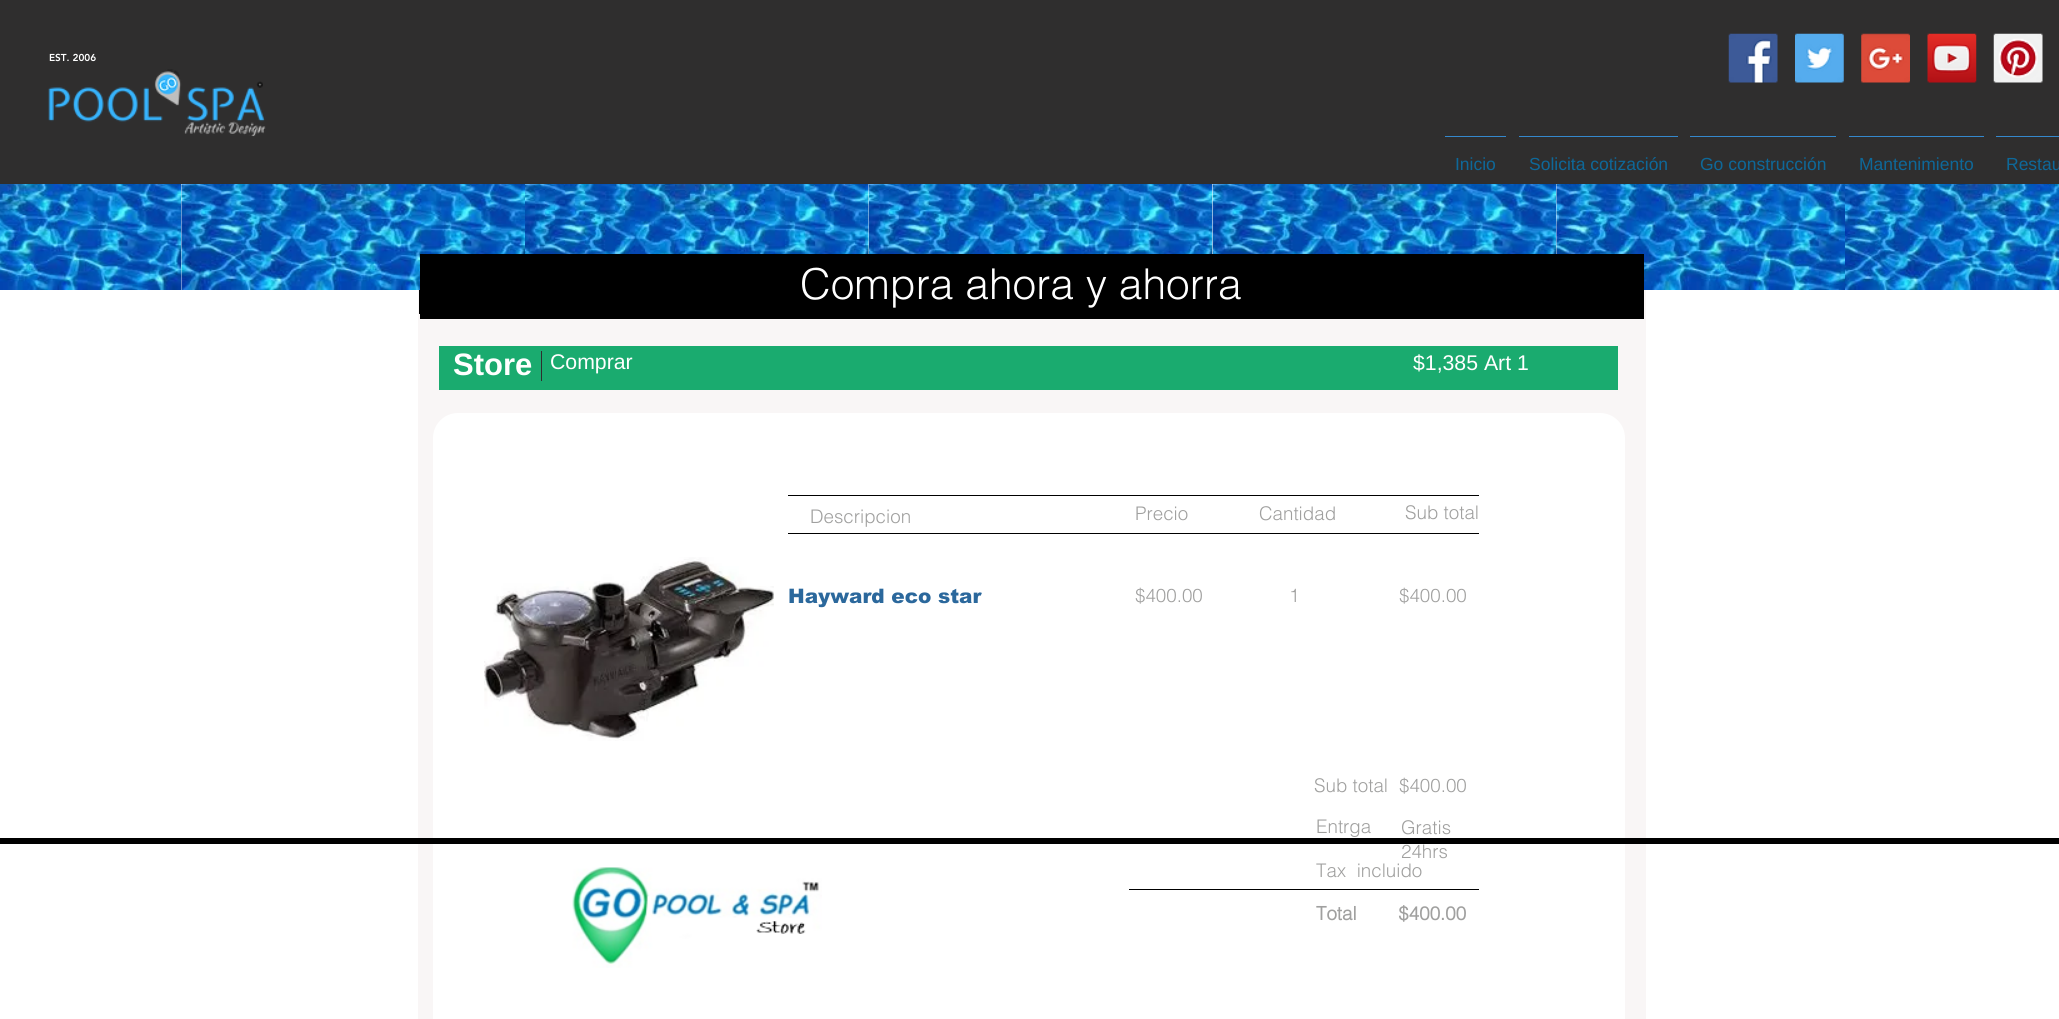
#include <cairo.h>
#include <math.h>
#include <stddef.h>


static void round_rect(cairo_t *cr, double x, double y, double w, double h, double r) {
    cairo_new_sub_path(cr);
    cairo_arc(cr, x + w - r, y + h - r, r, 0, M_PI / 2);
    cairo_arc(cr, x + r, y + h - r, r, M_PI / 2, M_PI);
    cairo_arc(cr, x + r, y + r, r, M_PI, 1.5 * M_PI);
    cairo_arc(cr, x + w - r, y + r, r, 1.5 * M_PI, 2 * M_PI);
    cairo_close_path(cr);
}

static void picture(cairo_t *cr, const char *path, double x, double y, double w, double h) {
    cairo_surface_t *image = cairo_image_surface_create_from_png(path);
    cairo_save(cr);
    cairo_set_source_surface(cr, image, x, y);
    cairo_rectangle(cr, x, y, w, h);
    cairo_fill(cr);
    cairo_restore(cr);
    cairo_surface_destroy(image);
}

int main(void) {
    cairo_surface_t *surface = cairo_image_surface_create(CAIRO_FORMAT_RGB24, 2059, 1019);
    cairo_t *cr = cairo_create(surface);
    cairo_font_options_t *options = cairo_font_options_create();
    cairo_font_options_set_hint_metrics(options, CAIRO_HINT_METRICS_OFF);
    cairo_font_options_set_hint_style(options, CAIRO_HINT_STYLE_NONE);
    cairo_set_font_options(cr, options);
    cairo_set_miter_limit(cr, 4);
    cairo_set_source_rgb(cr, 1, 1, 1);
    cairo_paint(cr);
    cairo_set_source_rgb(cr, 0.184, 0.18, 0.18);
    cairo_rectangle(cr, 0, 0, 2059, 184);
    cairo_fill(cr);
    cairo_select_font_face(cr, "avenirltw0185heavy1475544 Black", CAIRO_FONT_SLANT_NORMAL, CAIRO_FONT_WEIGHT_NORMAL);
    cairo_set_font_size(cr, 10);
    cairo_set_source_rgb(cr, 1, 1, 1);
    cairo_move_to(cr, 49, 61);
    cairo_show_text(cr, "EST. 2006");
    picture(cr, "img1.png", 1728, 33, 50, 50);
    picture(cr, "img2.png", 1795, 33, 49, 50);
    picture(cr, "img3.png", 1861, 33, 49, 50);
    picture(cr, "img4.png", 1927, 33, 50, 50);
    picture(cr, "img5.png", 1993, 33, 50, 50);
    picture(cr, "img6.png", 48, 69, 218, 68);
    cairo_set_source_rgb(cr, 0.208, 0.533, 0.8);
    cairo_rectangle(cr, 1445, 136, 61, 1);
    cairo_fill(cr);
    cairo_select_font_face(cr, "Liberation Sans", CAIRO_FONT_SLANT_NORMAL, CAIRO_FONT_WEIGHT_NORMAL);
    cairo_set_font_size(cr, 17.5);
    cairo_set_source_rgb(cr, 0.055, 0.408, 0.6);
    cairo_move_to(cr, 1455, 170);
    cairo_show_text(cr, "Inicio");
    cairo_set_source_rgb(cr, 0.208, 0.533, 0.8);
    cairo_rectangle(cr, 1519, 136, 159, 1);
    cairo_fill(cr);
    cairo_set_source_rgb(cr, 0.055, 0.408, 0.6);
    cairo_move_to(cr, 1529, 170);
    cairo_show_text(cr, "Solicita cotización");
    cairo_set_source_rgb(cr, 0.208, 0.533, 0.8);
    cairo_rectangle(cr, 1690, 136, 146, 1);
    cairo_fill(cr);
    cairo_set_source_rgb(cr, 0.055, 0.408, 0.6);
    cairo_move_to(cr, 1700, 170);
    cairo_show_text(cr, "Go construcción");
    cairo_set_source_rgb(cr, 0.208, 0.533, 0.8);
    cairo_rectangle(cr, 1849, 136, 135, 1);
    cairo_fill(cr);
    cairo_set_source_rgb(cr, 0.055, 0.408, 0.6);
    cairo_move_to(cr, 1859, 170);
    cairo_show_text(cr, "Mantenimiento");
    cairo_set_source_rgb(cr, 0.208, 0.533, 0.8);
    cairo_rectangle(cr, 1996, 136, 63, 1);
    cairo_fill(cr);
    cairo_set_source_rgb(cr, 0.055, 0.408, 0.6);
    cairo_move_to(cr, 2006, 170);
    cairo_show_text(cr, "Restau");
    picture(cr, "img7.png", 0, 184, 182, 106);
    cairo_set_source_rgb(cr, 0.976, 0.961, 0.961);
    cairo_rectangle(cr, 418, 224, 1228, 795);
    cairo_fill(cr);
    picture(cr, "img8.png", 181, 184, 344, 106);
    picture(cr, "img9.png", 525, 184, 344, 70);
    picture(cr, "img10.png", 868, 184, 345, 70);
    picture(cr, "img11.png", 1212, 184, 345, 70);
    picture(cr, "img12.png", 1556, 184, 289, 106);
    picture(cr, "img13.png", 1845, 184, 214, 106);
    cairo_set_source_rgb(cr, 0, 0, 0);
    cairo_rectangle(cr, 420, 254, 1224, 65);
    cairo_fill(cr);
    cairo_select_font_face(cr, "helvetica Light", CAIRO_FONT_SLANT_NORMAL, CAIRO_FONT_WEIGHT_NORMAL);
    cairo_set_font_size(cr, 42.5);
    cairo_set_source_rgb(cr, 1, 1, 1);
    cairo_move_to(cr, 800, 299);
    cairo_show_text(cr, "Compra ahora y ahorra");
    cairo_set_source_rgb(cr, 0.102, 0.671, 0.435);
    cairo_rectangle(cr, 439, 346, 1179, 44);
    cairo_fill(cr);
    cairo_set_source_rgb(cr, 0.184, 0.18, 0.18);
    cairo_rectangle(cr, 541, 351, 1, 30);
    cairo_fill(cr);
    cairo_set_source_rgb(cr, 0, 0, 0);
    cairo_rectangle(cr, 419, 290, 1, 24);
    cairo_fill(cr);
    cairo_select_font_face(cr, "Liberation Sans", CAIRO_FONT_SLANT_NORMAL, CAIRO_FONT_WEIGHT_BOLD);
    cairo_set_font_size(cr, 31);
    cairo_set_source_rgb(cr, 1, 1, 1);
    cairo_move_to(cr, 453, 375);
    cairo_show_text(cr, "Store");
    round_rect(cr, 433, 413, 1192, 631, 25);
    cairo_fill(cr);
    cairo_set_source_rgb(cr, 0, 0, 0);
    cairo_rectangle(cr, 788, 495, 691, 1);
    cairo_fill(cr);
    cairo_select_font_face(cr, "helvetica Light", CAIRO_FONT_SLANT_NORMAL, CAIRO_FONT_WEIGHT_NORMAL);
    cairo_set_font_size(cr, 18.75);
    cairo_set_source_rgb(cr, 0.627, 0.627, 0.624);
    cairo_move_to(cr, 810, 523);
    cairo_show_text(cr, "Descripcion");
    cairo_move_to(cr, 1135, 520);
    cairo_show_text(cr, "Precio");
    cairo_move_to(cr, 1259, 520);
    cairo_show_text(cr, "Cantidad");
    cairo_move_to(cr, 1405, 519);
    cairo_show_text(cr, "Sub total");
    cairo_set_source_rgb(cr, 0, 0, 0);
    cairo_rectangle(cr, 788, 533, 691, 1);
    cairo_fill(cr);
    picture(cr, "img14.png", 484, 557, 290, 184);
    cairo_select_font_face(cr, "arial Black", CAIRO_FONT_SLANT_NORMAL, CAIRO_FONT_WEIGHT_NORMAL);
    cairo_set_font_size(cr, 20);
    cairo_set_source_rgb(cr, 0.169, 0.408, 0.612);
    cairo_move_to(cr, 788, 603);
    cairo_show_text(cr, "Hayward eco star");
    cairo_select_font_face(cr, "helvetica Light", CAIRO_FONT_SLANT_NORMAL, CAIRO_FONT_WEIGHT_NORMAL);
    cairo_set_font_size(cr, 18.75);
    cairo_set_source_rgb(cr, 0.627, 0.627, 0.624);
    cairo_move_to(cr, 1135, 602);
    cairo_show_text(cr, "$400.00");
    cairo_move_to(cr, 1289, 602);
    cairo_show_text(cr, "1");
    cairo_move_to(cr, 1399, 602);
    cairo_show_text(cr, "$400.00");
    cairo_move_to(cr, 1314, 792);
    cairo_show_text(cr, "Sub total");
    cairo_move_to(cr, 1399, 792);
    cairo_show_text(cr, "$400.00");
    cairo_move_to(cr, 1316, 833);
    cairo_show_text(cr, "Entrga");
    cairo_move_to(cr, 1401, 834);
    cairo_show_text(cr, "Gratis");
    cairo_move_to(cr, 1401, 858);
    cairo_show_text(cr, "24hrs");
    picture(cr, "img15.png", 572, 867, 250, 101);
    cairo_move_to(cr, 1316, 877);
    cairo_show_text(cr, "Tax  incluido");
    cairo_set_source_rgb(cr, 0, 0, 0);
    cairo_rectangle(cr, 1129, 889, 350, 1);
    cairo_fill(cr);
    cairo_select_font_face(cr, "helvetica", CAIRO_FONT_SLANT_NORMAL, CAIRO_FONT_WEIGHT_BOLD);
    cairo_set_source_rgb(cr, 0.627, 0.627, 0.624);
    cairo_move_to(cr, 1316, 920);
    cairo_show_text(cr, "Total        $400.00");
    cairo_select_font_face(cr, "Liberation Sans", CAIRO_FONT_SLANT_NORMAL, CAIRO_FONT_WEIGHT_NORMAL);
    cairo_set_font_size(cr, 21.25);
    cairo_set_source_rgb(cr, 1, 1, 1);
    cairo_move_to(cr, 550, 369);
    cairo_show_text(cr, "Comprar");
    cairo_move_to(cr, 1413, 370);
    cairo_show_text(cr, "$1,385 Art 1");
    cairo_set_source_rgb(cr, 0, 0, 0);
    cairo_rectangle(cr, 0, 838, 2059, 6);
    cairo_fill(cr);
    cairo_surface_write_to_png(surface, "page.png");
    cairo_font_options_destroy(options);
    cairo_destroy(cr);
    cairo_surface_destroy(surface);
    return 0;
}
